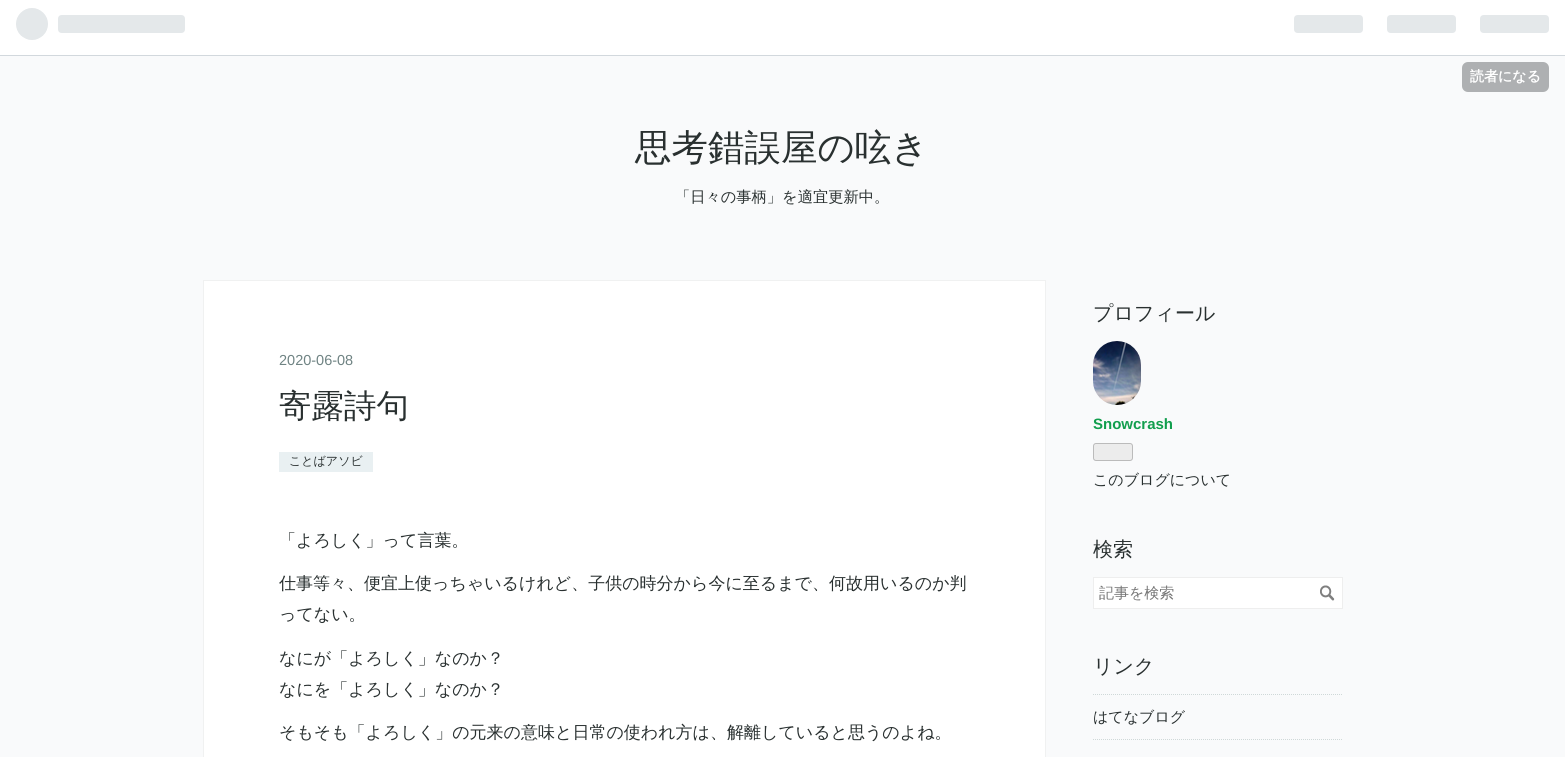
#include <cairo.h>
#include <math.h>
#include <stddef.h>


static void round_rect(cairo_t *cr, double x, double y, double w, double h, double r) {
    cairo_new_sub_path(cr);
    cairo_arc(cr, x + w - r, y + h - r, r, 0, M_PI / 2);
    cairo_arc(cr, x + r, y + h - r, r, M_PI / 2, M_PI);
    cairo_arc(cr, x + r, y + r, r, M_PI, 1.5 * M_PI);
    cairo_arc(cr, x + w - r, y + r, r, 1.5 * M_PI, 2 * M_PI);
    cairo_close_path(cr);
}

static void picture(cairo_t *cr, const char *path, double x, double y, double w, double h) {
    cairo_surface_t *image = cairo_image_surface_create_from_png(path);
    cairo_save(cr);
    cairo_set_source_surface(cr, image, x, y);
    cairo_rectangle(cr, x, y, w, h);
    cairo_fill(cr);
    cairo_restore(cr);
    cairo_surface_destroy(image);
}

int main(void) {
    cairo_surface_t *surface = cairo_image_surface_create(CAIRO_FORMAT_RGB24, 1565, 757);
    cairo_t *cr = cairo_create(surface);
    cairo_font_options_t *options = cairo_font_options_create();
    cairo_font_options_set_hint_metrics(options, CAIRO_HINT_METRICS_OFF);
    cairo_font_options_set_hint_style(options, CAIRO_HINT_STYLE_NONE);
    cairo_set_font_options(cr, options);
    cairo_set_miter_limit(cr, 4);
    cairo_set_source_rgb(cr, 0.976, 0.98, 0.984);
    cairo_paint(cr);
    cairo_set_source_rgb(cr, 1, 1, 1);
    cairo_rectangle(cr, 0, 0, 1565, 55);
    cairo_fill(cr);
    cairo_set_source_rgb(cr, 0.824, 0.847, 0.867);
    cairo_rectangle(cr, 0, 55, 1565, 1);
    cairo_fill(cr);
    picture(cr, "img1.png", 16, 8, 169, 32);
    picture(cr, "img2.png", 1294, 15, 255, 18);
    cairo_set_source_rgb(cr, 0.682, 0.69, 0.698);
    round_rect(cr, 1462, 62, 87, 30, 6);
    cairo_fill(cr);
    cairo_select_font_face(cr, "WenQuanYi Zen Hei", CAIRO_FONT_SLANT_NORMAL, CAIRO_FONT_WEIGHT_BOLD);
    cairo_set_font_size(cr, 14);
    cairo_set_source_rgb(cr, 1, 1, 1);
    cairo_move_to(cr, 1470, 81);
    cairo_show_text(cr, "読者になる");
    cairo_select_font_face(cr, "WenQuanYi Zen Hei Medium", CAIRO_FONT_SLANT_NORMAL, CAIRO_FONT_WEIGHT_NORMAL);
    cairo_set_font_size(cr, 36.5);
    cairo_set_source_rgb(cr, 0.161, 0.188, 0.188);
    cairo_move_to(cr, 635, 160);
    cairo_show_text(cr, "思考錯誤屋の呟き");
    cairo_set_font_size(cr, 15.25);
    cairo_move_to(cr, 675, 202);
    cairo_show_text(cr, "「日々の事柄」を適宜更新中。");
    cairo_set_source_rgb(cr, 1, 1, 1);
    cairo_rectangle(cr, 203.5, 280.5, 842, 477);
    cairo_fill_preserve(cr);
    cairo_set_source_rgb(cr, 0.941, 0.945, 0.945);
    cairo_set_line_width(cr, 1);
    cairo_stroke(cr);
    cairo_select_font_face(cr, "Liberation Sans", CAIRO_FONT_SLANT_NORMAL, CAIRO_FONT_WEIGHT_NORMAL);
    cairo_set_font_size(cr, 14.5);
    cairo_set_source_rgb(cr, 0.435, 0.514, 0.514);
    cairo_move_to(cr, 279, 365);
    cairo_show_text(cr, "2020-06-08");
    cairo_select_font_face(cr, "WenQuanYi Zen Hei Medium", CAIRO_FONT_SLANT_NORMAL, CAIRO_FONT_WEIGHT_NORMAL);
    cairo_set_font_size(cr, 32.5);
    cairo_set_source_rgb(cr, 0.161, 0.188, 0.188);
    cairo_move_to(cr, 279, 417);
    cairo_show_text(cr, "寄露詩句");
    cairo_set_source_rgb(cr, 0.914, 0.941, 0.949);
    cairo_rectangle(cr, 279, 452, 94, 20);
    cairo_fill(cr);
    cairo_set_font_size(cr, 12);
    cairo_set_source_rgb(cr, 0.161, 0.188, 0.188);
    cairo_move_to(cr, 289, 465);
    cairo_show_text(cr, "ことばアソビ");
    cairo_set_font_size(cr, 17);
    cairo_move_to(cr, 279, 546);
    cairo_show_text(cr, "「よろしく」って言葉。");
    cairo_move_to(cr, 279, 589);
    cairo_show_text(cr, "仕事等々、便宜上使っちゃいるけれど、子供の時分から今に至るまで、何故用いるのか判");
    cairo_move_to(cr, 279, 620);
    cairo_show_text(cr, "ってない。");
    cairo_move_to(cr, 279, 664);
    cairo_show_text(cr, "なにが「よろしく」なのか？");
    cairo_move_to(cr, 279, 695);
    cairo_show_text(cr, "なにを「よろしく」なのか？");
    cairo_move_to(cr, 279, 738);
    cairo_show_text(cr, "そもそも「よろしく」の元来の意味と日常の使われ方は、解離していると思うのよね。");
    cairo_set_font_size(cr, 20);
    cairo_move_to(cr, 1093, 320);
    cairo_show_text(cr, "プロフィール");
    picture(cr, "img3.png", 1093, 341, 48, 64);
    cairo_select_font_face(cr, "Liberation Sans", CAIRO_FONT_SLANT_NORMAL, CAIRO_FONT_WEIGHT_BOLD);
    cairo_set_font_size(cr, 15);
    cairo_set_source_rgb(cr, 0.067, 0.62, 0.302);
    cairo_move_to(cr, 1093, 429);
    cairo_show_text(cr, "Snowcrash");
    cairo_set_source_rgb(cr, 0.922, 0.922, 0.922);
    round_rect(cr, 1093.5, 443.5, 39, 17, 2.5);
    cairo_fill_preserve(cr);
    cairo_set_source_rgb(cr, 0.733, 0.733, 0.733);
    cairo_stroke(cr);
    cairo_select_font_face(cr, "WenQuanYi Zen Hei Medium", CAIRO_FONT_SLANT_NORMAL, CAIRO_FONT_WEIGHT_NORMAL);
    cairo_set_source_rgb(cr, 0.161, 0.188, 0.188);
    cairo_move_to(cr, 1093, 485);
    cairo_show_text(cr, "このブログについて");
    cairo_set_font_size(cr, 20);
    cairo_move_to(cr, 1093, 556);
    cairo_show_text(cr, "検索");
    cairo_set_source_rgb(cr, 1, 1, 1);
    cairo_rectangle(cr, 1093.5, 577.5, 249, 31);
    cairo_fill_preserve(cr);
    cairo_set_source_rgb(cr, 0.933, 0.933, 0.933);
    cairo_stroke(cr);
    cairo_set_font_size(cr, 15);
    cairo_set_source_rgb(cr, 0.459, 0.459, 0.459);
    cairo_move_to(cr, 1099, 598);
    cairo_show_text(cr, "記事を検索");
    picture(cr, "img4.png", 1320, 585, 15, 16);
    cairo_set_font_size(cr, 20);
    cairo_set_source_rgb(cr, 0.161, 0.188, 0.188);
    cairo_move_to(cr, 1093, 673);
    cairo_show_text(cr, "リンク");
    cairo_new_path(cr);
    cairo_move_to(cr, 1093, 694.5);
    cairo_line_to(cr, 1343, 694.5);
    cairo_set_source_rgb(cr, 0.812, 0.847, 0.847);
    cairo_set_dash(cr, (double[]){1, 1}, 2, 0);
    cairo_stroke(cr);
    cairo_set_font_size(cr, 15);
    cairo_set_source_rgb(cr, 0.161, 0.188, 0.188);
    cairo_move_to(cr, 1093, 722);
    cairo_show_text(cr, "はてなブログ");
    cairo_new_path(cr);
    cairo_move_to(cr, 1093, 739.5);
    cairo_line_to(cr, 1343, 739.5);
    cairo_set_source_rgb(cr, 0.812, 0.847, 0.847);
    cairo_stroke(cr);
    cairo_surface_write_to_png(surface, "page.png");
    cairo_font_options_destroy(options);
    cairo_destroy(cr);
    cairo_surface_destroy(surface);
    return 0;
}
